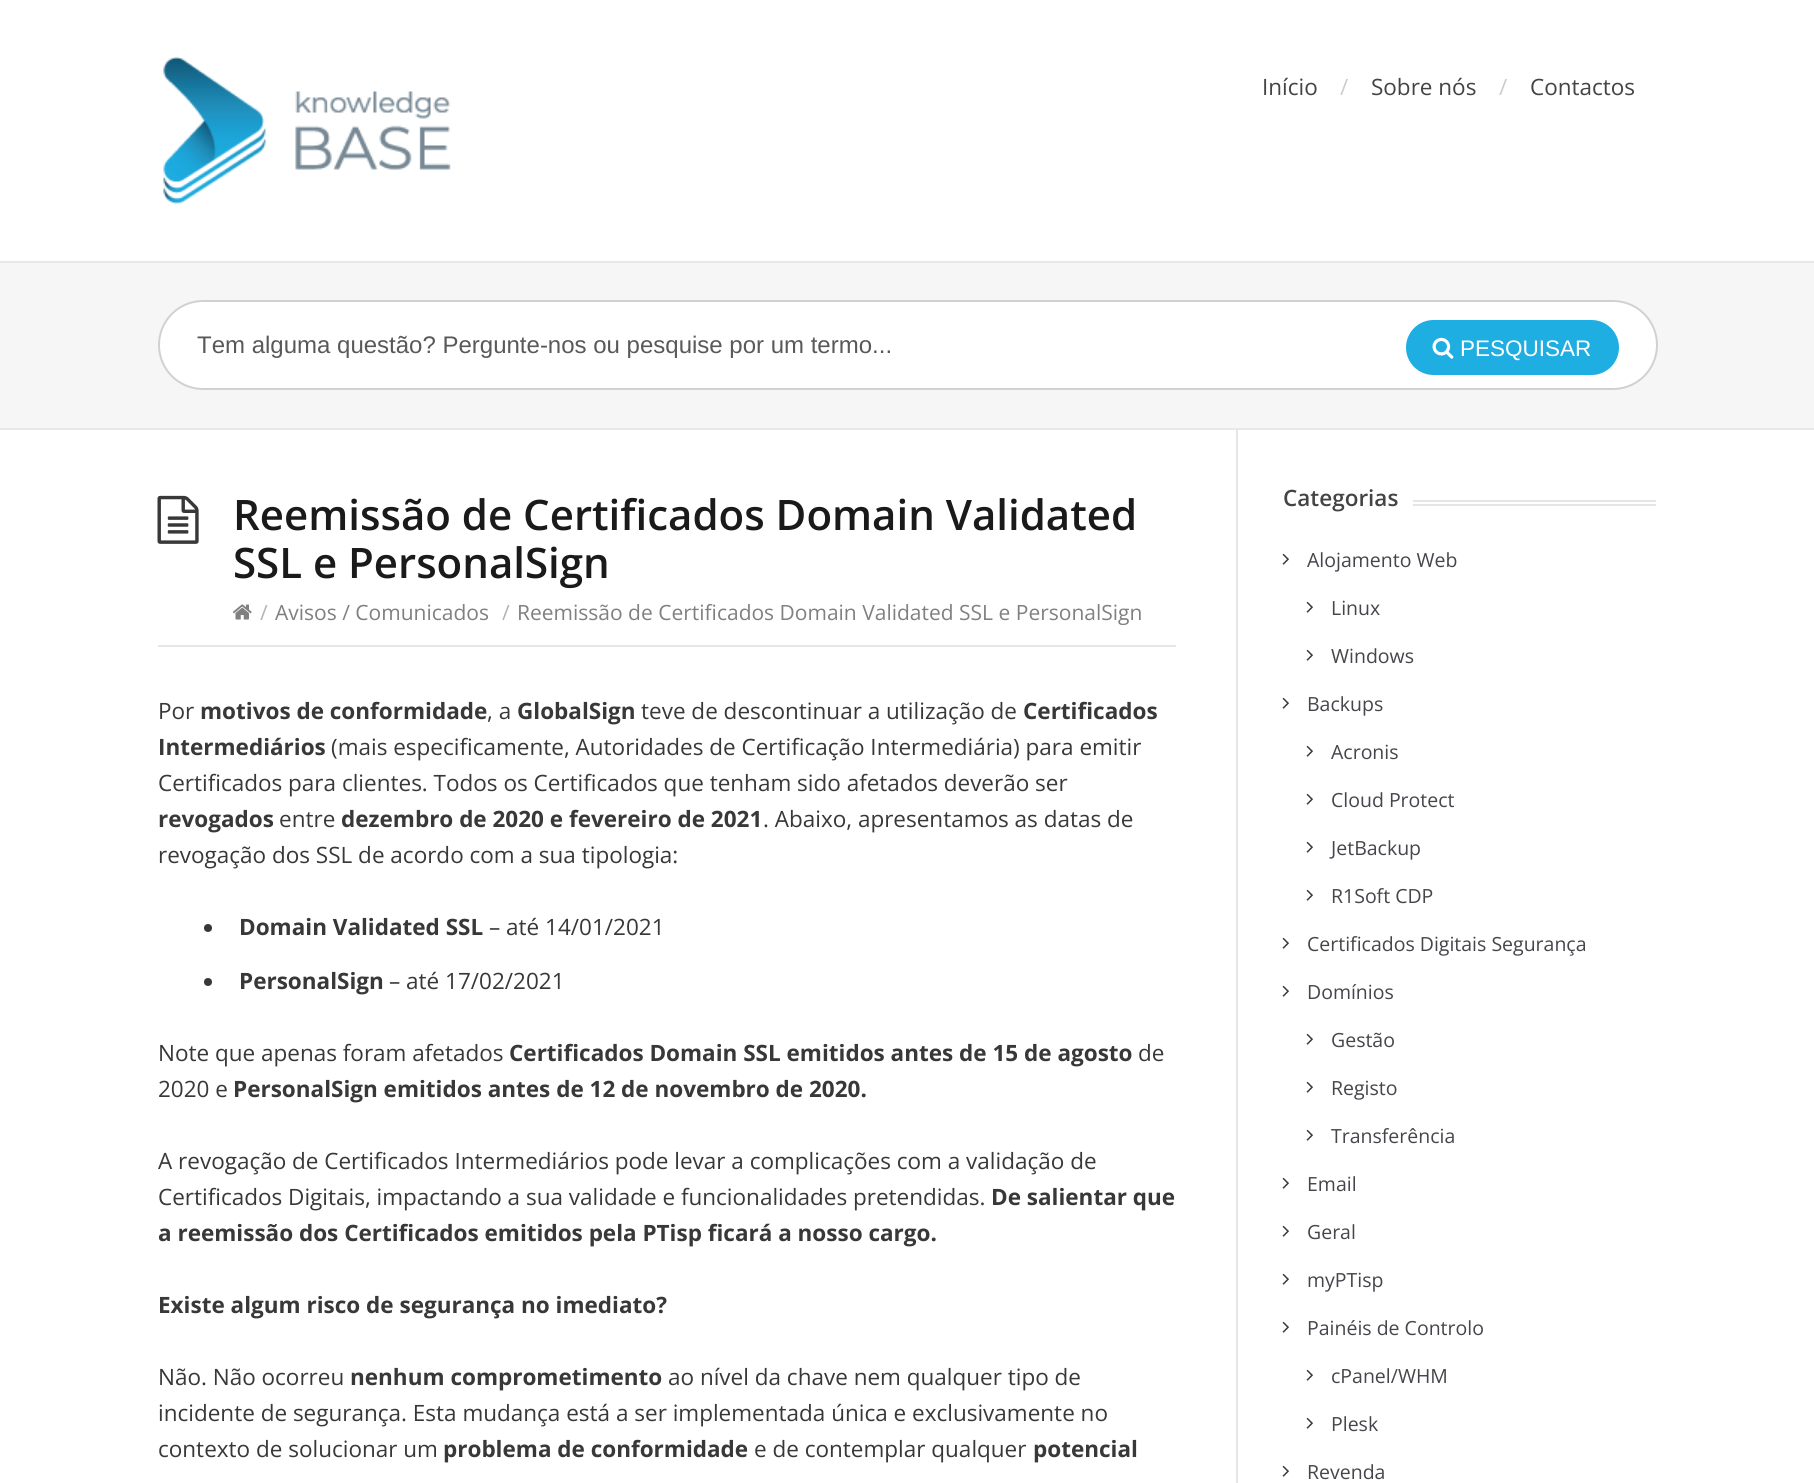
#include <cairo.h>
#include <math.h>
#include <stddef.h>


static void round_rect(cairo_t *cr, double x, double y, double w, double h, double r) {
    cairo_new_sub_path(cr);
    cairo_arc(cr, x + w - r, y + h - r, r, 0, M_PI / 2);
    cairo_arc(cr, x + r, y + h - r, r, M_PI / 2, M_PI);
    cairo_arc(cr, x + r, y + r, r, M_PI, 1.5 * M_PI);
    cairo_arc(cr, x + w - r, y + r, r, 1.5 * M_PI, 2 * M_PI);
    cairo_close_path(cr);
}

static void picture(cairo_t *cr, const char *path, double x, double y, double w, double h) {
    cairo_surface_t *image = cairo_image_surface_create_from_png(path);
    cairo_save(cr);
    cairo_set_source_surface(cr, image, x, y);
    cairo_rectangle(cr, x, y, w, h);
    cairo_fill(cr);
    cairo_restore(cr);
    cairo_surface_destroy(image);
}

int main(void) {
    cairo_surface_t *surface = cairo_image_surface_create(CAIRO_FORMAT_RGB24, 1814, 1483);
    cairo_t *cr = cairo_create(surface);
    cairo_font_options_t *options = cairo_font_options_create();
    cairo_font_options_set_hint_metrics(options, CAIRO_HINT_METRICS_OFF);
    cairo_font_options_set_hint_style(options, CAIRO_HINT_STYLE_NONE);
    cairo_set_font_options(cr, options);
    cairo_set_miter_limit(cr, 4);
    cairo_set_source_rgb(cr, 1, 1, 1);
    cairo_paint(cr);
    picture(cr, "img1.png", 163, 56, 288, 149);
    cairo_select_font_face(cr, "Open Sans", CAIRO_FONT_SLANT_NORMAL, CAIRO_FONT_WEIGHT_NORMAL);
    cairo_set_font_size(cr, 22.5);
    cairo_set_source_rgb(cr, 0.267, 0.267, 0.267);
    cairo_move_to(cr, 1262, 95);
    cairo_show_text(cr, "Início");
    cairo_set_source_rgb(cr, 0.8, 0.8, 0.8);
    cairo_move_to(cr, 1340, 95);
    cairo_show_text(cr, "/");
    cairo_set_source_rgb(cr, 0.267, 0.267, 0.267);
    cairo_move_to(cr, 1371, 95);
    cairo_show_text(cr, "Sobre nós");
    cairo_set_source_rgb(cr, 0.8, 0.8, 0.8);
    cairo_move_to(cr, 1499, 95);
    cairo_show_text(cr, "/");
    cairo_set_source_rgb(cr, 0.267, 0.267, 0.267);
    cairo_move_to(cr, 1530, 95);
    cairo_show_text(cr, "Contactos");
    cairo_set_source_rgb(cr, 0.961, 0.961, 0.961);
    cairo_rectangle(cr, 0, 263, 1814, 165);
    cairo_fill(cr);
    cairo_set_source_rgb(cr, 0.91, 0.91, 0.91);
    cairo_rectangle(cr, 0, 261, 1814, 2);
    cairo_fill(cr);
    cairo_rectangle(cr, 0, 428, 1814, 2);
    cairo_fill(cr);
    cairo_set_source_rgb(cr, 1, 1, 1);
    round_rect(cr, 159, 301, 1498, 88, 44);
    cairo_fill_preserve(cr);
    cairo_set_source_rgb(cr, 0.82, 0.82, 0.82);
    cairo_stroke(cr);
    cairo_select_font_face(cr, "Liberation Sans", CAIRO_FONT_SLANT_NORMAL, CAIRO_FONT_WEIGHT_NORMAL);
    cairo_set_font_size(cr, 24);
    cairo_set_source_rgb(cr, 0.349, 0.349, 0.349);
    cairo_move_to(cr, 197, 353);
    cairo_show_text(cr, "Tem alguma questão? Pergunte-nos ou pesquise por um termo...");
    cairo_set_source_rgb(cr, 0.122, 0.682, 0.886);
    round_rect(cr, 1406, 320, 213, 55, 27.5);
    cairo_fill(cr);
    picture(cr, "img2.png", 1432, 337, 22, 22);
    cairo_set_font_size(cr, 22.5);
    cairo_set_source_rgb(cr, 1, 1, 1);
    cairo_move_to(cr, 1460, 356);
    cairo_show_text(cr, "PESQUISAR");
    cairo_set_source_rgb(cr, 0.902, 0.902, 0.902);
    cairo_rectangle(cr, 1236, 429, 2, 1054);
    cairo_fill(cr);
    cairo_rectangle(cr, 158, 645, 1018, 2);
    cairo_fill(cr);
    picture(cr, "img3.png", 157, 495, 42, 49);
    cairo_select_font_face(cr, "Open Sans SemiBold", CAIRO_FONT_SLANT_NORMAL, CAIRO_FONT_WEIGHT_NORMAL);
    cairo_set_font_size(cr, 42);
    cairo_set_source_rgb(cr, 0.102, 0.102, 0.102);
    cairo_move_to(cr, 233, 530);
    cairo_show_text(cr, "Reemissão de Certificados Domain Validated");
    cairo_move_to(cr, 233, 578);
    cairo_show_text(cr, "SSL e PersonalSign");
    picture(cr, "img4.png", 232, 604, 20, 16);
    cairo_select_font_face(cr, "Open Sans", CAIRO_FONT_SLANT_NORMAL, CAIRO_FONT_WEIGHT_NORMAL);
    cairo_set_font_size(cr, 21);
    cairo_set_source_rgb(cr, 0.702, 0.702, 0.702);
    cairo_move_to(cr, 260, 620);
    cairo_show_text(cr, "/");
    cairo_set_source_rgb(cr, 0.502, 0.502, 0.502);
    cairo_move_to(cr, 275, 620);
    cairo_show_text(cr, "Avisos / Comunicados");
    cairo_set_source_rgb(cr, 0.702, 0.702, 0.702);
    cairo_move_to(cr, 502, 620);
    cairo_show_text(cr, "/");
    cairo_set_source_rgb(cr, 0.502, 0.502, 0.502);
    cairo_move_to(cr, 517, 620);
    cairo_show_text(cr, "Reemissão de Certificados Domain Validated SSL e PersonalSign");
    cairo_set_font_size(cr, 22.5);
    cairo_set_source_rgb(cr, 0.22, 0.22, 0.22);
    cairo_move_to(cr, 158, 719);
    cairo_show_text(cr, "Por");
    cairo_select_font_face(cr, "Open Sans", CAIRO_FONT_SLANT_NORMAL, CAIRO_FONT_WEIGHT_BOLD);
    cairo_move_to(cr, 200, 719);
    cairo_show_text(cr, "motivos de conformidade");
    cairo_select_font_face(cr, "Open Sans", CAIRO_FONT_SLANT_NORMAL, CAIRO_FONT_WEIGHT_NORMAL);
    cairo_move_to(cr, 487, 719);
    cairo_show_text(cr, ", a");
    cairo_select_font_face(cr, "Open Sans", CAIRO_FONT_SLANT_NORMAL, CAIRO_FONT_WEIGHT_BOLD);
    cairo_move_to(cr, 517, 719);
    cairo_show_text(cr, "GlobalSign");
    cairo_select_font_face(cr, "Open Sans", CAIRO_FONT_SLANT_NORMAL, CAIRO_FONT_WEIGHT_NORMAL);
    cairo_move_to(cr, 641, 719);
    cairo_show_text(cr, "teve de descontinuar a utilização de");
    cairo_select_font_face(cr, "Open Sans", CAIRO_FONT_SLANT_NORMAL, CAIRO_FONT_WEIGHT_BOLD);
    cairo_move_to(cr, 1023, 719);
    cairo_show_text(cr, "Certificados");
    cairo_move_to(cr, 158, 755);
    cairo_show_text(cr, "Intermediários");
    cairo_select_font_face(cr, "Open Sans", CAIRO_FONT_SLANT_NORMAL, CAIRO_FONT_WEIGHT_NORMAL);
    cairo_move_to(cr, 331, 755);
    cairo_show_text(cr, "(mais especificamente, Autoridades de Certificação Intermediária) para emitir");
    cairo_move_to(cr, 158, 791);
    cairo_show_text(cr, "Certificados para clientes. Todos os Certificados que tenham sido afetados deverão ser");
    cairo_select_font_face(cr, "Open Sans", CAIRO_FONT_SLANT_NORMAL, CAIRO_FONT_WEIGHT_BOLD);
    cairo_move_to(cr, 158, 827);
    cairo_show_text(cr, "revogados");
    cairo_select_font_face(cr, "Open Sans", CAIRO_FONT_SLANT_NORMAL, CAIRO_FONT_WEIGHT_NORMAL);
    cairo_move_to(cr, 279, 827);
    cairo_show_text(cr, "entre");
    cairo_select_font_face(cr, "Open Sans", CAIRO_FONT_SLANT_NORMAL, CAIRO_FONT_WEIGHT_BOLD);
    cairo_move_to(cr, 341, 827);
    cairo_show_text(cr, "dezembro de 2020 e fevereiro de 2021");
    cairo_select_font_face(cr, "Open Sans", CAIRO_FONT_SLANT_NORMAL, CAIRO_FONT_WEIGHT_NORMAL);
    cairo_move_to(cr, 763, 827);
    cairo_show_text(cr, ". Abaixo, apresentamos as datas de");
    cairo_move_to(cr, 158, 863);
    cairo_show_text(cr, "revogação dos SSL de acordo com a sua tipologia:");
    cairo_new_path(cr);
    cairo_arc(cr, 208, 928, 4, 0, 2 * M_PI);
    cairo_fill(cr);
    cairo_select_font_face(cr, "Open Sans", CAIRO_FONT_SLANT_NORMAL, CAIRO_FONT_WEIGHT_BOLD);
    cairo_move_to(cr, 239, 935);
    cairo_show_text(cr, "Domain Validated SSL");
    cairo_select_font_face(cr, "Open Sans", CAIRO_FONT_SLANT_NORMAL, CAIRO_FONT_WEIGHT_NORMAL);
    cairo_move_to(cr, 489, 935);
    cairo_show_text(cr, "– até 14/01/2021");
    cairo_new_path(cr);
    cairo_arc(cr, 208, 982, 4, 0, 2 * M_PI);
    cairo_fill(cr);
    cairo_select_font_face(cr, "Open Sans", CAIRO_FONT_SLANT_NORMAL, CAIRO_FONT_WEIGHT_BOLD);
    cairo_move_to(cr, 239, 989);
    cairo_show_text(cr, "PersonalSign");
    cairo_select_font_face(cr, "Open Sans", CAIRO_FONT_SLANT_NORMAL, CAIRO_FONT_WEIGHT_NORMAL);
    cairo_move_to(cr, 389, 989);
    cairo_show_text(cr, "– até 17/02/2021");
    cairo_move_to(cr, 158, 1061);
    cairo_show_text(cr, "Note que apenas foram afetados");
    cairo_select_font_face(cr, "Open Sans", CAIRO_FONT_SLANT_NORMAL, CAIRO_FONT_WEIGHT_BOLD);
    cairo_move_to(cr, 509, 1061);
    cairo_show_text(cr, "Certificados Domain SSL emitidos antes de 15 de agosto");
    cairo_select_font_face(cr, "Open Sans", CAIRO_FONT_SLANT_NORMAL, CAIRO_FONT_WEIGHT_NORMAL);
    cairo_move_to(cr, 1138, 1061);
    cairo_show_text(cr, "de");
    cairo_move_to(cr, 158, 1097);
    cairo_show_text(cr, "2020 e");
    cairo_select_font_face(cr, "Open Sans", CAIRO_FONT_SLANT_NORMAL, CAIRO_FONT_WEIGHT_BOLD);
    cairo_move_to(cr, 233, 1097);
    cairo_show_text(cr, "PersonalSign emitidos antes de 12 de novembro de 2020.");
    cairo_select_font_face(cr, "Open Sans", CAIRO_FONT_SLANT_NORMAL, CAIRO_FONT_WEIGHT_NORMAL);
    cairo_move_to(cr, 158, 1169);
    cairo_show_text(cr, "A revogação de Certificados Intermediários pode levar a complicações com a validação de");
    cairo_move_to(cr, 158, 1205);
    cairo_show_text(cr, "Certificados Digitais, impactando a sua validade e funcionalidades pretendidas.");
    cairo_select_font_face(cr, "Open Sans", CAIRO_FONT_SLANT_NORMAL, CAIRO_FONT_WEIGHT_BOLD);
    cairo_move_to(cr, 991, 1205);
    cairo_show_text(cr, "De salientar que");
    cairo_move_to(cr, 158, 1241);
    cairo_show_text(cr, "a reemissão dos Certificados emitidos pela PTisp ficará a nosso cargo.");
    cairo_move_to(cr, 158, 1313);
    cairo_show_text(cr, "Existe algum risco de segurança no imediato?");
    cairo_select_font_face(cr, "Open Sans", CAIRO_FONT_SLANT_NORMAL, CAIRO_FONT_WEIGHT_NORMAL);
    cairo_move_to(cr, 158, 1385);
    cairo_show_text(cr, "Não. Não ocorreu");
    cairo_select_font_face(cr, "Open Sans", CAIRO_FONT_SLANT_NORMAL, CAIRO_FONT_WEIGHT_BOLD);
    cairo_move_to(cr, 350, 1385);
    cairo_show_text(cr, "nenhum comprometimento");
    cairo_select_font_face(cr, "Open Sans", CAIRO_FONT_SLANT_NORMAL, CAIRO_FONT_WEIGHT_NORMAL);
    cairo_move_to(cr, 668, 1385);
    cairo_show_text(cr, "ao nível da chave nem qualquer tipo de");
    cairo_move_to(cr, 158, 1421);
    cairo_show_text(cr, "incidente de segurança. Esta mudança está a ser implementada única e exclusivamente no");
    cairo_move_to(cr, 158, 1457);
    cairo_show_text(cr, "contexto de solucionar um");
    cairo_select_font_face(cr, "Open Sans", CAIRO_FONT_SLANT_NORMAL, CAIRO_FONT_WEIGHT_BOLD);
    cairo_move_to(cr, 443, 1457);
    cairo_show_text(cr, "problema de conformidade");
    cairo_select_font_face(cr, "Open Sans", CAIRO_FONT_SLANT_NORMAL, CAIRO_FONT_WEIGHT_NORMAL);
    cairo_move_to(cr, 754, 1457);
    cairo_show_text(cr, "e de contemplar qualquer");
    cairo_select_font_face(cr, "Open Sans", CAIRO_FONT_SLANT_NORMAL, CAIRO_FONT_WEIGHT_BOLD);
    cairo_move_to(cr, 1033, 1457);
    cairo_show_text(cr, "potencial");
    cairo_set_source_rgb(cr, 0.898, 0.898, 0.898);
    cairo_rectangle(cr, 1413, 500, 243, 2);
    cairo_fill(cr);
    cairo_rectangle(cr, 1413, 504, 243, 2);
    cairo_fill(cr);
    cairo_select_font_face(cr, "Open Sans SemiBold", CAIRO_FONT_SLANT_NORMAL, CAIRO_FONT_WEIGHT_NORMAL);
    cairo_set_source_rgb(cr, 0.267, 0.267, 0.267);
    cairo_move_to(cr, 1283, 506);
    cairo_show_text(cr, "Categorias");
    picture(cr, "img5.png", 1282, 553, 7, 12);
    cairo_select_font_face(cr, "Open Sans", CAIRO_FONT_SLANT_NORMAL, CAIRO_FONT_WEIGHT_NORMAL);
    cairo_set_font_size(cr, 19.5);
    cairo_set_source_rgb(cr, 0.271, 0.271, 0.298);
    cairo_move_to(cr, 1307, 567);
    cairo_show_text(cr, "Alojamento Web");
    picture(cr, "img5.png", 1306, 601, 7, 12);
    cairo_move_to(cr, 1331, 615);
    cairo_show_text(cr, "Linux");
    picture(cr, "img5.png", 1306, 649, 7, 12);
    cairo_move_to(cr, 1331, 663);
    cairo_show_text(cr, "Windows");
    picture(cr, "img5.png", 1282, 697, 7, 12);
    cairo_move_to(cr, 1307, 711);
    cairo_show_text(cr, "Backups");
    picture(cr, "img5.png", 1306, 745, 7, 12);
    cairo_move_to(cr, 1331, 759);
    cairo_show_text(cr, "Acronis");
    picture(cr, "img5.png", 1306, 793, 7, 12);
    cairo_move_to(cr, 1331, 807);
    cairo_show_text(cr, "Cloud Protect");
    picture(cr, "img5.png", 1306, 841, 7, 12);
    cairo_move_to(cr, 1331, 855);
    cairo_show_text(cr, "JetBackup");
    picture(cr, "img5.png", 1306, 889, 7, 12);
    cairo_move_to(cr, 1331, 903);
    cairo_show_text(cr, "R1Soft CDP");
    picture(cr, "img5.png", 1282, 937, 7, 12);
    cairo_move_to(cr, 1307, 951);
    cairo_show_text(cr, "Certificados Digitais Segurança");
    picture(cr, "img5.png", 1282, 985, 7, 12);
    cairo_move_to(cr, 1307, 999);
    cairo_show_text(cr, "Domínios");
    picture(cr, "img5.png", 1306, 1033, 7, 12);
    cairo_move_to(cr, 1331, 1047);
    cairo_show_text(cr, "Gestão");
    picture(cr, "img5.png", 1306, 1081, 7, 12);
    cairo_move_to(cr, 1331, 1095);
    cairo_show_text(cr, "Registo");
    picture(cr, "img5.png", 1306, 1129, 7, 12);
    cairo_move_to(cr, 1331, 1143);
    cairo_show_text(cr, "Transferência");
    picture(cr, "img5.png", 1282, 1177, 7, 12);
    cairo_move_to(cr, 1307, 1191);
    cairo_show_text(cr, "Email");
    picture(cr, "img5.png", 1282, 1225, 7, 12);
    cairo_move_to(cr, 1307, 1239);
    cairo_show_text(cr, "Geral");
    picture(cr, "img5.png", 1282, 1273, 7, 12);
    cairo_move_to(cr, 1307, 1287);
    cairo_show_text(cr, "myPTisp");
    picture(cr, "img5.png", 1282, 1321, 7, 12);
    cairo_move_to(cr, 1307, 1335);
    cairo_show_text(cr, "Painéis de Controlo");
    picture(cr, "img5.png", 1306, 1369, 7, 12);
    cairo_move_to(cr, 1331, 1383);
    cairo_show_text(cr, "cPanel/WHM");
    picture(cr, "img5.png", 1306, 1417, 7, 12);
    cairo_move_to(cr, 1331, 1431);
    cairo_show_text(cr, "Plesk");
    picture(cr, "img5.png", 1282, 1465, 7, 12);
    cairo_move_to(cr, 1307, 1479);
    cairo_show_text(cr, "Revenda");
    cairo_surface_write_to_png(surface, "page.png");
    cairo_font_options_destroy(options);
    cairo_destroy(cr);
    cairo_surface_destroy(surface);
    return 0;
}
